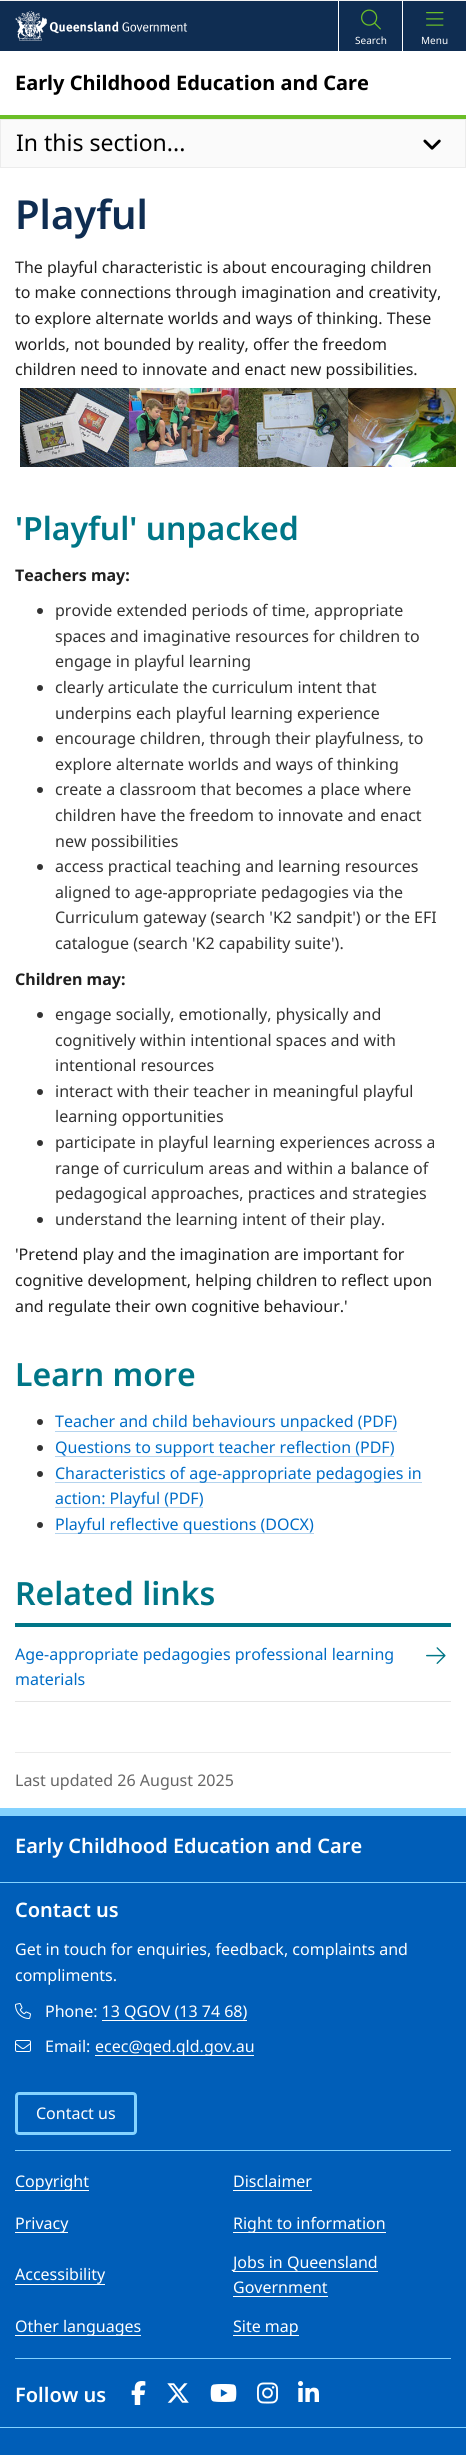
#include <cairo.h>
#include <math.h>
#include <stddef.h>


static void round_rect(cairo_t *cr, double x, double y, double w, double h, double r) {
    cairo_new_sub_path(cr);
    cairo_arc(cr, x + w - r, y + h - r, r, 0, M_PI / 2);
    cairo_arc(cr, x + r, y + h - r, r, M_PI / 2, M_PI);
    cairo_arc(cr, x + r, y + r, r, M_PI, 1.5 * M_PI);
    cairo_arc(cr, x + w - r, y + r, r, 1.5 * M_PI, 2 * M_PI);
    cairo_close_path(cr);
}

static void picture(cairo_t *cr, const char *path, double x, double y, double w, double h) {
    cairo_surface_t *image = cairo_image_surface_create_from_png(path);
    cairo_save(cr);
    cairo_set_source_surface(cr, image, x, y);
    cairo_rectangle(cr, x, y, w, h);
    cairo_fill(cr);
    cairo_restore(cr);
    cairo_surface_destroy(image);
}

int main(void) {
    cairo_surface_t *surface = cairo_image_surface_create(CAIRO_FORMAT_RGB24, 466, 2455);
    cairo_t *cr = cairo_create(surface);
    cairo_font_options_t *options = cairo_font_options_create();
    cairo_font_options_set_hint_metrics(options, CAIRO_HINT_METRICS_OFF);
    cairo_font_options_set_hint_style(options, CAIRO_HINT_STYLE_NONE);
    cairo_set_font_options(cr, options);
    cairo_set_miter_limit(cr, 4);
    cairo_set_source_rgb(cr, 1, 1, 1);
    cairo_paint(cr);
    cairo_set_source_rgb(cr, 0.953, 0.953, 0.953);
    cairo_rectangle(cr, 0, 0, 466, 1);
    cairo_fill(cr);
    cairo_set_source_rgb(cr, 0.059, 0.176, 0.322);
    cairo_rectangle(cr, 0, 1, 466, 50);
    cairo_fill(cr);
    picture(cr, "img1.png", 15, 11, 173, 30);
    cairo_set_source_rgb(cr, 1, 1, 1);
    cairo_rectangle(cr, 338, 1, 1, 50);
    cairo_fill(cr);
    picture(cr, "img2.png", 361, 9, 20, 21);
    cairo_select_font_face(cr, "Noto Sans", CAIRO_FONT_SLANT_NORMAL, CAIRO_FONT_WEIGHT_NORMAL);
    cairo_set_font_size(cr, 10);
    cairo_move_to(cr, 355, 44);
    cairo_show_text(cr, "Search");
    cairo_rectangle(cr, 402, 1, 1, 50);
    cairo_fill(cr);
    picture(cr, "img3.png", 426, 12, 18, 14);
    cairo_move_to(cr, 421, 44);
    cairo_show_text(cr, "Menu");
    cairo_set_source_rgb(cr, 0.42, 0.745, 0.153);
    cairo_rectangle(cr, 0, 115, 466, 4);
    cairo_fill(cr);
    cairo_select_font_face(cr, "Noto Sans", CAIRO_FONT_SLANT_NORMAL, CAIRO_FONT_WEIGHT_BOLD);
    cairo_set_font_size(cr, 20);
    cairo_set_source_rgb(cr, 0, 0, 0);
    cairo_move_to(cr, 15, 90);
    cairo_show_text(cr, "Early Childhood Education and Care");
    cairo_set_source_rgb(cr, 0.98, 0.98, 0.98);
    cairo_rectangle(cr, 0.5, 119.5, 465, 48);
    cairo_fill_preserve(cr);
    cairo_set_source_rgb(cr, 0.925, 0.925, 0.925);
    cairo_set_line_width(cr, 1);
    cairo_stroke(cr);
    cairo_select_font_face(cr, "Noto Sans", CAIRO_FONT_SLANT_NORMAL, CAIRO_FONT_WEIGHT_NORMAL);
    cairo_set_font_size(cr, 23);
    cairo_set_source_rgb(cr, 0, 0, 0);
    cairo_move_to(cr, 16, 151);
    cairo_show_text(cr, "In this section...");
    picture(cr, "img4.png", 423, 139, 18, 11);
    cairo_select_font_face(cr, "Noto Sans SemiBold", CAIRO_FONT_SLANT_NORMAL, CAIRO_FONT_WEIGHT_NORMAL);
    cairo_set_font_size(cr, 40);
    cairo_set_source_rgb(cr, 0.059, 0.176, 0.322);
    cairo_move_to(cr, 15, 229);
    cairo_show_text(cr, "Playful");
    cairo_select_font_face(cr, "Noto Sans", CAIRO_FONT_SLANT_NORMAL, CAIRO_FONT_WEIGHT_NORMAL);
    cairo_set_font_size(cr, 16);
    cairo_set_source_rgb(cr, 0.125, 0.125, 0.125);
    cairo_move_to(cr, 15, 273);
    cairo_show_text(cr, "The playful characteristic is about encouraging children");
    cairo_move_to(cr, 15, 298);
    cairo_show_text(cr, "to make connections through imagination and creativity,");
    cairo_move_to(cr, 15, 324);
    cairo_show_text(cr, "to explore alternate worlds and ways of thinking. These");
    cairo_move_to(cr, 15, 350);
    cairo_show_text(cr, "worlds, not bounded by reality, offer the freedom");
    cairo_move_to(cr, 15, 375);
    cairo_show_text(cr, "children need to innovate and enact new possibilities.");
    picture(cr, "img5.png", 20, 388, 436, 79);
    cairo_select_font_face(cr, "Noto Sans SemiBold", CAIRO_FONT_SLANT_NORMAL, CAIRO_FONT_WEIGHT_NORMAL);
    cairo_set_font_size(cr, 32);
    cairo_set_source_rgb(cr, 0, 0.463, 0.529);
    cairo_move_to(cr, 15, 540);
    cairo_show_text(cr, "'Playful' unpacked");
    cairo_select_font_face(cr, "Noto Sans", CAIRO_FONT_SLANT_NORMAL, CAIRO_FONT_WEIGHT_BOLD);
    cairo_set_font_size(cr, 16);
    cairo_set_source_rgb(cr, 0.125, 0.125, 0.125);
    cairo_move_to(cr, 15, 581);
    cairo_show_text(cr, "Teachers may:");
    cairo_set_source_rgb(cr, 0.2, 0.2, 0.2);
    cairo_new_path(cr);
    cairo_arc(cr, 40, 611, 3, 0, 2 * M_PI);
    cairo_fill(cr);
    cairo_select_font_face(cr, "Noto Sans", CAIRO_FONT_SLANT_NORMAL, CAIRO_FONT_WEIGHT_NORMAL);
    cairo_move_to(cr, 55, 616);
    cairo_show_text(cr, "provide extended periods of time, appropriate");
    cairo_move_to(cr, 55, 642);
    cairo_show_text(cr, "spaces and imaginative resources for children to");
    cairo_move_to(cr, 55, 667);
    cairo_show_text(cr, "engage in playful learning");
    cairo_new_path(cr);
    cairo_arc(cr, 40, 688, 3, 0, 2 * M_PI);
    cairo_fill(cr);
    cairo_move_to(cr, 55, 693);
    cairo_show_text(cr, "clearly articulate the curriculum intent that");
    cairo_move_to(cr, 55, 719);
    cairo_show_text(cr, "underpins each playful learning experience");
    cairo_new_path(cr);
    cairo_arc(cr, 40, 739, 3, 0, 2 * M_PI);
    cairo_fill(cr);
    cairo_move_to(cr, 55, 744);
    cairo_show_text(cr, "encourage children, through their playfulness, to");
    cairo_move_to(cr, 55, 770);
    cairo_show_text(cr, "explore alternate worlds and ways of thinking");
    cairo_new_path(cr);
    cairo_arc(cr, 40, 790, 3, 0, 2 * M_PI);
    cairo_fill(cr);
    cairo_move_to(cr, 55, 795);
    cairo_show_text(cr, "create a classroom that becomes a place where");
    cairo_move_to(cr, 55, 821);
    cairo_show_text(cr, "children have the freedom to innovate and enact");
    cairo_move_to(cr, 55, 847);
    cairo_show_text(cr, "new possibilities");
    cairo_new_path(cr);
    cairo_arc(cr, 40, 867, 3, 0, 2 * M_PI);
    cairo_fill(cr);
    cairo_move_to(cr, 55, 872);
    cairo_show_text(cr, "access practical teaching and learning resources");
    cairo_move_to(cr, 55, 898);
    cairo_show_text(cr, "aligned to age-appropriate pedagogies via the");
    cairo_move_to(cr, 55, 923);
    cairo_show_text(cr, "Curriculum gateway (search 'K2 sandpit') or the EFI");
    cairo_move_to(cr, 55, 949);
    cairo_show_text(cr, "catalogue (search 'K2 capability suite').");
    cairo_select_font_face(cr, "Noto Sans", CAIRO_FONT_SLANT_NORMAL, CAIRO_FONT_WEIGHT_BOLD);
    cairo_set_source_rgb(cr, 0.125, 0.125, 0.125);
    cairo_move_to(cr, 15, 985);
    cairo_show_text(cr, "Children may:");
    cairo_set_source_rgb(cr, 0.2, 0.2, 0.2);
    cairo_new_path(cr);
    cairo_arc(cr, 40, 1015, 3, 0, 2 * M_PI);
    cairo_fill(cr);
    cairo_select_font_face(cr, "Noto Sans", CAIRO_FONT_SLANT_NORMAL, CAIRO_FONT_WEIGHT_NORMAL);
    cairo_move_to(cr, 55, 1020);
    cairo_show_text(cr, "engage socially, emotionally, physically and");
    cairo_move_to(cr, 55, 1046);
    cairo_show_text(cr, "cognitively within intentional spaces and with");
    cairo_move_to(cr, 55, 1071);
    cairo_show_text(cr, "intentional resources");
    cairo_new_path(cr);
    cairo_arc(cr, 40, 1092, 3, 0, 2 * M_PI);
    cairo_fill(cr);
    cairo_move_to(cr, 55, 1097);
    cairo_show_text(cr, "interact with their teacher in meaningful playful");
    cairo_move_to(cr, 55, 1122);
    cairo_show_text(cr, "learning opportunities");
    cairo_new_path(cr);
    cairo_arc(cr, 40, 1143, 3, 0, 2 * M_PI);
    cairo_fill(cr);
    cairo_move_to(cr, 55, 1148);
    cairo_show_text(cr, "participate in playful learning experiences across a");
    cairo_move_to(cr, 55, 1174);
    cairo_show_text(cr, "range of curriculum areas and within a balance of");
    cairo_move_to(cr, 55, 1199);
    cairo_show_text(cr, "pedagogical approaches, practices and strategies");
    cairo_new_path(cr);
    cairo_arc(cr, 40, 1220, 3, 0, 2 * M_PI);
    cairo_fill(cr);
    cairo_move_to(cr, 55, 1225);
    cairo_show_text(cr, "understand the learning intent of their play.");
    cairo_set_source_rgb(cr, 0.125, 0.125, 0.125);
    cairo_move_to(cr, 15, 1260);
    cairo_show_text(cr, "'Pretend play and the imagination are important for");
    cairo_move_to(cr, 15, 1286);
    cairo_show_text(cr, "cognitive development, helping children to reflect upon");
    cairo_move_to(cr, 15, 1312);
    cairo_show_text(cr, "and regulate their own cognitive behaviour.'");
    cairo_select_font_face(cr, "Noto Sans SemiBold", CAIRO_FONT_SLANT_NORMAL, CAIRO_FONT_WEIGHT_NORMAL);
    cairo_set_font_size(cr, 32);
    cairo_set_source_rgb(cr, 0, 0.463, 0.529);
    cairo_move_to(cr, 15, 1386);
    cairo_show_text(cr, "Learn more");
    cairo_set_source_rgb(cr, 0.2, 0.2, 0.2);
    cairo_new_path(cr);
    cairo_arc(cr, 40, 1422, 3, 0, 2 * M_PI);
    cairo_fill(cr);
    cairo_select_font_face(cr, "Noto Sans", CAIRO_FONT_SLANT_NORMAL, CAIRO_FONT_WEIGHT_NORMAL);
    cairo_set_font_size(cr, 16);
    cairo_set_source_rgb(cr, 0, 0.427, 0.78);
    cairo_move_to(cr, 55, 1427);
    cairo_show_text(cr, "Teacher and child behaviours unpacked (PDF)");
    cairo_set_source_rgb(cr, 0.702, 0.827, 0.933);
    cairo_rectangle(cr, 55, 1431, 342, 1);
    cairo_fill(cr);
    cairo_set_source_rgb(cr, 0.2, 0.2, 0.2);
    cairo_arc(cr, 40, 1448, 3, 0, 2 * M_PI);
    cairo_fill(cr);
    cairo_set_source_rgb(cr, 0.702, 0.827, 0.933);
    cairo_rectangle(cr, 55, 1456, 339, 1);
    cairo_fill(cr);
    cairo_set_source_rgb(cr, 0, 0.427, 0.78);
    cairo_move_to(cr, 55, 1453);
    cairo_show_text(cr, "Questions to support teacher reflection (PDF)");
    cairo_set_source_rgb(cr, 0.2, 0.2, 0.2);
    cairo_new_path(cr);
    cairo_arc(cr, 40, 1474, 3, 0, 2 * M_PI);
    cairo_fill(cr);
    cairo_set_source_rgb(cr, 0.702, 0.827, 0.933);
    cairo_rectangle(cr, 55, 1482, 367, 1);
    cairo_fill(cr);
    cairo_set_source_rgb(cr, 0, 0.427, 0.78);
    cairo_move_to(cr, 55, 1479);
    cairo_show_text(cr, "Characteristics of age-appropriate pedagogies in");
    cairo_set_source_rgb(cr, 0.702, 0.827, 0.933);
    cairo_rectangle(cr, 55, 1507, 148, 1);
    cairo_fill(cr);
    cairo_set_source_rgb(cr, 0, 0.427, 0.78);
    cairo_move_to(cr, 55, 1504);
    cairo_show_text(cr, "action: Playful (PDF)");
    cairo_set_source_rgb(cr, 0.2, 0.2, 0.2);
    cairo_new_path(cr);
    cairo_arc(cr, 40, 1525, 3, 0, 2 * M_PI);
    cairo_fill(cr);
    cairo_set_source_rgb(cr, 0.702, 0.827, 0.933);
    cairo_rectangle(cr, 55, 1533, 259, 1);
    cairo_fill(cr);
    cairo_set_source_rgb(cr, 0, 0.427, 0.78);
    cairo_move_to(cr, 55, 1530);
    cairo_show_text(cr, "Playful reflective questions (DOCX)");
    cairo_set_source_rgb(cr, 0, 0.463, 0.529);
    cairo_rectangle(cr, 15, 1623, 436, 4);
    cairo_fill(cr);
    cairo_select_font_face(cr, "Noto Sans SemiBold", CAIRO_FONT_SLANT_NORMAL, CAIRO_FONT_WEIGHT_NORMAL);
    cairo_set_font_size(cr, 32);
    cairo_move_to(cr, 15, 1605);
    cairo_show_text(cr, "Related links");
    cairo_set_source_rgb(cr, 0.898, 0.898, 0.898);
    cairo_rectangle(cr, 15, 1701, 436, 1);
    cairo_fill(cr);
    cairo_select_font_face(cr, "Noto Sans", CAIRO_FONT_SLANT_NORMAL, CAIRO_FONT_WEIGHT_NORMAL);
    cairo_set_font_size(cr, 16);
    cairo_set_source_rgb(cr, 0, 0.427, 0.78);
    cairo_move_to(cr, 15, 1660);
    cairo_show_text(cr, "Age-appropriate pedagogies professional learning");
    picture(cr, "img6.png", 426, 1647, 20, 17);
    cairo_move_to(cr, 15, 1685);
    cairo_show_text(cr, "materials");
    cairo_set_source_rgb(cr, 0.918, 0.918, 0.918);
    cairo_rectangle(cr, 15, 1752, 436, 1);
    cairo_fill(cr);
    cairo_set_source_rgb(cr, 0.4, 0.4, 0.4);
    cairo_move_to(cr, 15, 1786);
    cairo_show_text(cr, "Last updated 26 August 2025");
    cairo_set_source_rgb(cr, 0, 0.369, 0.722);
    cairo_rectangle(cr, 0, 1816, 466, 639);
    cairo_fill(cr);
    cairo_set_source_rgb(cr, 0.518, 0.827, 1);
    cairo_rectangle(cr, 0, 1808, 466, 8);
    cairo_fill(cr);
    cairo_select_font_face(cr, "Noto Sans SemiBold", CAIRO_FONT_SLANT_NORMAL, CAIRO_FONT_WEIGHT_NORMAL);
    cairo_set_font_size(cr, 20);
    cairo_set_source_rgb(cr, 1, 1, 1);
    cairo_move_to(cr, 15, 1853);
    cairo_show_text(cr, "Early Childhood Education and Care");
    cairo_set_source_rgb(cr, 0.518, 0.827, 1);
    cairo_rectangle(cr, 0, 1882, 466, 1);
    cairo_fill(cr);
    cairo_set_source_rgb(cr, 1, 1, 1);
    cairo_move_to(cr, 15, 1917);
    cairo_show_text(cr, "Contact us");
    cairo_select_font_face(cr, "Noto Sans", CAIRO_FONT_SLANT_NORMAL, CAIRO_FONT_WEIGHT_NORMAL);
    cairo_set_font_size(cr, 16);
    cairo_move_to(cr, 15, 1955);
    cairo_show_text(cr, "Get in touch for enquiries, feedback, complaints and");
    cairo_move_to(cr, 15, 1981);
    cairo_show_text(cr, "compliments.");
    picture(cr, "img7.png", 15, 2003, 16, 16);
    cairo_move_to(cr, 45, 2017);
    cairo_show_text(cr, "Phone: 13 QGOV (13 74 68)");
    cairo_rectangle(cr, 102, 2020, 145, 1);
    cairo_fill(cr);
    picture(cr, "img8.png", 15, 2040, 16, 12);
    cairo_move_to(cr, 45, 2052);
    cairo_show_text(cr, "Email:");
    cairo_rectangle(cr, 95, 2055, 159, 1);
    cairo_fill(cr);
    cairo_move_to(cr, 95, 2052);
    cairo_show_text(cr, "ecec@qed.qld.gov.au");
    round_rect(cr, 16.5, 2093.5, 119, 40, 2.5);
    cairo_set_source_rgb(cr, 0.518, 0.827, 1);
    cairo_set_line_width(cr, 3);
    cairo_stroke(cr);
    cairo_set_source_rgb(cr, 1, 1, 1);
    cairo_move_to(cr, 36, 2119);
    cairo_show_text(cr, "Contact us");
    cairo_set_source_rgb(cr, 0.518, 0.827, 1);
    cairo_rectangle(cr, 15, 2150, 436, 1);
    cairo_fill(cr);
    cairo_set_source_rgb(cr, 1, 1, 1);
    cairo_rectangle(cr, 15, 2190, 74, 1);
    cairo_fill(cr);
    cairo_move_to(cr, 15, 2187);
    cairo_show_text(cr, "Copyright");
    cairo_move_to(cr, 233, 2187);
    cairo_show_text(cr, "Disclaimer");
    cairo_rectangle(cr, 233, 2190, 79, 1);
    cairo_fill(cr);
    cairo_rectangle(cr, 15, 2232, 53, 1);
    cairo_fill(cr);
    cairo_move_to(cr, 15, 2229);
    cairo_show_text(cr, "Privacy");
    cairo_rectangle(cr, 233, 2232, 153, 1);
    cairo_fill(cr);
    cairo_move_to(cr, 233, 2229);
    cairo_show_text(cr, "Right to information");
    cairo_move_to(cr, 15, 2280);
    cairo_show_text(cr, "Accessibility");
    cairo_rectangle(cr, 15, 2284, 90, 1);
    cairo_fill(cr);
    cairo_rectangle(cr, 233, 2271, 145, 1);
    cairo_fill(cr);
    cairo_move_to(cr, 233, 2268);
    cairo_show_text(cr, "Jobs in Queensland");
    cairo_move_to(cr, 233, 2293);
    cairo_show_text(cr, "Government");
    cairo_rectangle(cr, 233, 2296, 95, 1);
    cairo_fill(cr);
    cairo_rectangle(cr, 15, 2335, 126, 1);
    cairo_fill(cr);
    cairo_move_to(cr, 15, 2332);
    cairo_show_text(cr, "Other languages");
    cairo_rectangle(cr, 233, 2335, 66, 1);
    cairo_fill(cr);
    cairo_move_to(cr, 233, 2332);
    cairo_show_text(cr, "Site map");
    cairo_set_source_rgb(cr, 0.518, 0.827, 1);
    cairo_rectangle(cr, 15, 2358, 436, 1);
    cairo_fill(cr);
    cairo_select_font_face(cr, "Noto Sans SemiBold", CAIRO_FONT_SLANT_NORMAL, CAIRO_FONT_WEIGHT_NORMAL);
    cairo_set_font_size(cr, 20);
    cairo_set_source_rgb(cr, 1, 1, 1);
    cairo_move_to(cr, 15, 2402);
    cairo_show_text(cr, "Follow us");
    picture(cr, "img9.png", 131, 2381, 15, 24);
    picture(cr, "img10.png", 167, 2383, 22, 20);
    picture(cr, "img11.png", 210, 2384, 27, 18);
    picture(cr, "img12.png", 257, 2382, 21, 22);
    picture(cr, "img13.png", 298, 2381, 21, 21);
    cairo_set_source_rgb(cr, 0.518, 0.827, 1);
    cairo_rectangle(cr, 0, 2427, 466, 1);
    cairo_fill(cr);
    cairo_surface_write_to_png(surface, "page.png");
    cairo_font_options_destroy(options);
    cairo_destroy(cr);
    cairo_surface_destroy(surface);
    return 0;
}
